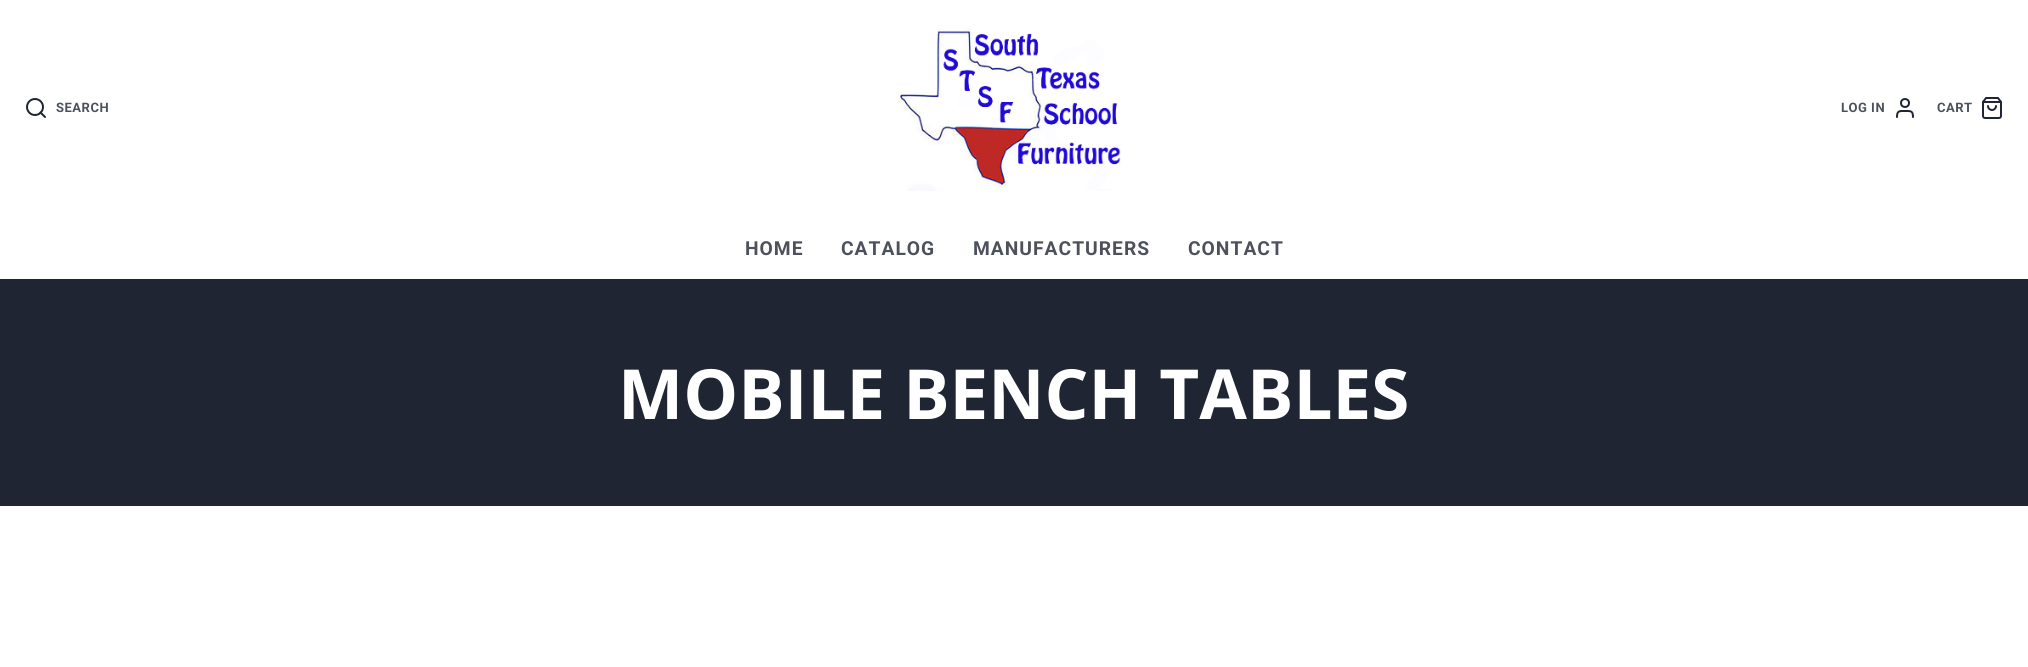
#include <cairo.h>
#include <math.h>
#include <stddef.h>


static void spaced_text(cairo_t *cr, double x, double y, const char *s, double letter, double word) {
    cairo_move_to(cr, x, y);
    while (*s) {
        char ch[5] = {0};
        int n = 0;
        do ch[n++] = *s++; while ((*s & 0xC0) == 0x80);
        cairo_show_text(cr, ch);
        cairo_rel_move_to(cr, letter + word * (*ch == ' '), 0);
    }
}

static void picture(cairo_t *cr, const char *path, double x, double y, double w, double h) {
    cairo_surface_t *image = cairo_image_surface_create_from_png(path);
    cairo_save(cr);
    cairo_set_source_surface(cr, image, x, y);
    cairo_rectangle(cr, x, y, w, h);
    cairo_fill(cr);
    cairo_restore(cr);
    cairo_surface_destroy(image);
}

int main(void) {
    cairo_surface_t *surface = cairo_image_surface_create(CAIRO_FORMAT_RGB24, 2028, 667);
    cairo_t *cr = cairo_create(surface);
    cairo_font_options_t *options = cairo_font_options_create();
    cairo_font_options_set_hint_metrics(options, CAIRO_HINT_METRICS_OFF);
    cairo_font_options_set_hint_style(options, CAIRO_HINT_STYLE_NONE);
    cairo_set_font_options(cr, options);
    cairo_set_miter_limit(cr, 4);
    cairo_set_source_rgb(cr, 1, 1, 1);
    cairo_paint(cr);
    cairo_arc(cr, 35, 107, 8, 0, 2 * M_PI);
    cairo_set_source_rgb(cr, 0.122, 0.145, 0.196);
    cairo_stroke(cr);
    cairo_new_path(cr);
    cairo_move_to(cr, 45, 117);
    cairo_line_to(cr, 40.5, 112.5);
    cairo_set_line_cap(cr, CAIRO_LINE_CAP_ROUND);
    cairo_set_line_join(cr, CAIRO_LINE_JOIN_ROUND);
    cairo_stroke(cr);
    cairo_select_font_face(cr, "Roboto", CAIRO_FONT_SLANT_NORMAL, CAIRO_FONT_WEIGHT_BOLD);
    cairo_set_font_size(cr, 13);
    cairo_set_source_rgb(cr, 0.298, 0.318, 0.357);
    spaced_text(cr, 56, 112, "SEARCH", 0.5, 0);
    picture(cr, "img1.png", 896, 28, 225, 163);
    spaced_text(cr, 1841, 112, "LOG IN", 0.5, 0);
    cairo_new_path(cr);
    cairo_arc(cr, 1905, 103, 4, 0, 2 * M_PI);
    cairo_set_source_rgb(cr, 0.122, 0.145, 0.196);
    cairo_set_line_cap(cr, CAIRO_LINE_CAP_BUTT);
    cairo_set_line_join(cr, CAIRO_LINE_JOIN_MITER);
    cairo_stroke(cr);
    cairo_new_path(cr);
    cairo_move_to(cr, 1913, 117);
    cairo_curve_to(cr, 1913, 110.5, 1910.5, 111, 1905, 111);
    cairo_curve_to(cr, 1899.5, 111, 1897, 110.5, 1897, 117);
    cairo_set_line_cap(cr, CAIRO_LINE_CAP_ROUND);
    cairo_set_line_join(cr, CAIRO_LINE_JOIN_ROUND);
    cairo_stroke(cr);
    cairo_set_source_rgb(cr, 0.298, 0.318, 0.357);
    spaced_text(cr, 1937, 112, "CART", 0.5, 0);
    picture(cr, "img2.png", 1982, 97, 20, 22);
    cairo_set_font_size(cr, 19.25);
    spaced_text(cr, 745, 255, "HOME", 1, 0);
    spaced_text(cr, 841, 255, "CATALOG", 1, 0);
    spaced_text(cr, 973, 255, "MANUFACTURERS", 1, 0);
    spaced_text(cr, 1188, 255, "CONTACT", 1, 0);
    cairo_set_source_rgb(cr, 0.122, 0.145, 0.196);
    cairo_rectangle(cr, 0, 279, 2028, 227);
    cairo_fill(cr);
    cairo_select_font_face(cr, "Open Sans", CAIRO_FONT_SLANT_NORMAL, CAIRO_FONT_WEIGHT_BOLD);
    cairo_set_font_size(cr, 69.1);
    cairo_set_source_rgb(cr, 1, 1, 1);
    cairo_move_to(cr, 618, 419);
    cairo_show_text(cr, "MOBILE BENCH TABLES");
    cairo_surface_write_to_png(surface, "page.png");
    cairo_font_options_destroy(options);
    cairo_destroy(cr);
    cairo_surface_destroy(surface);
    return 0;
}
